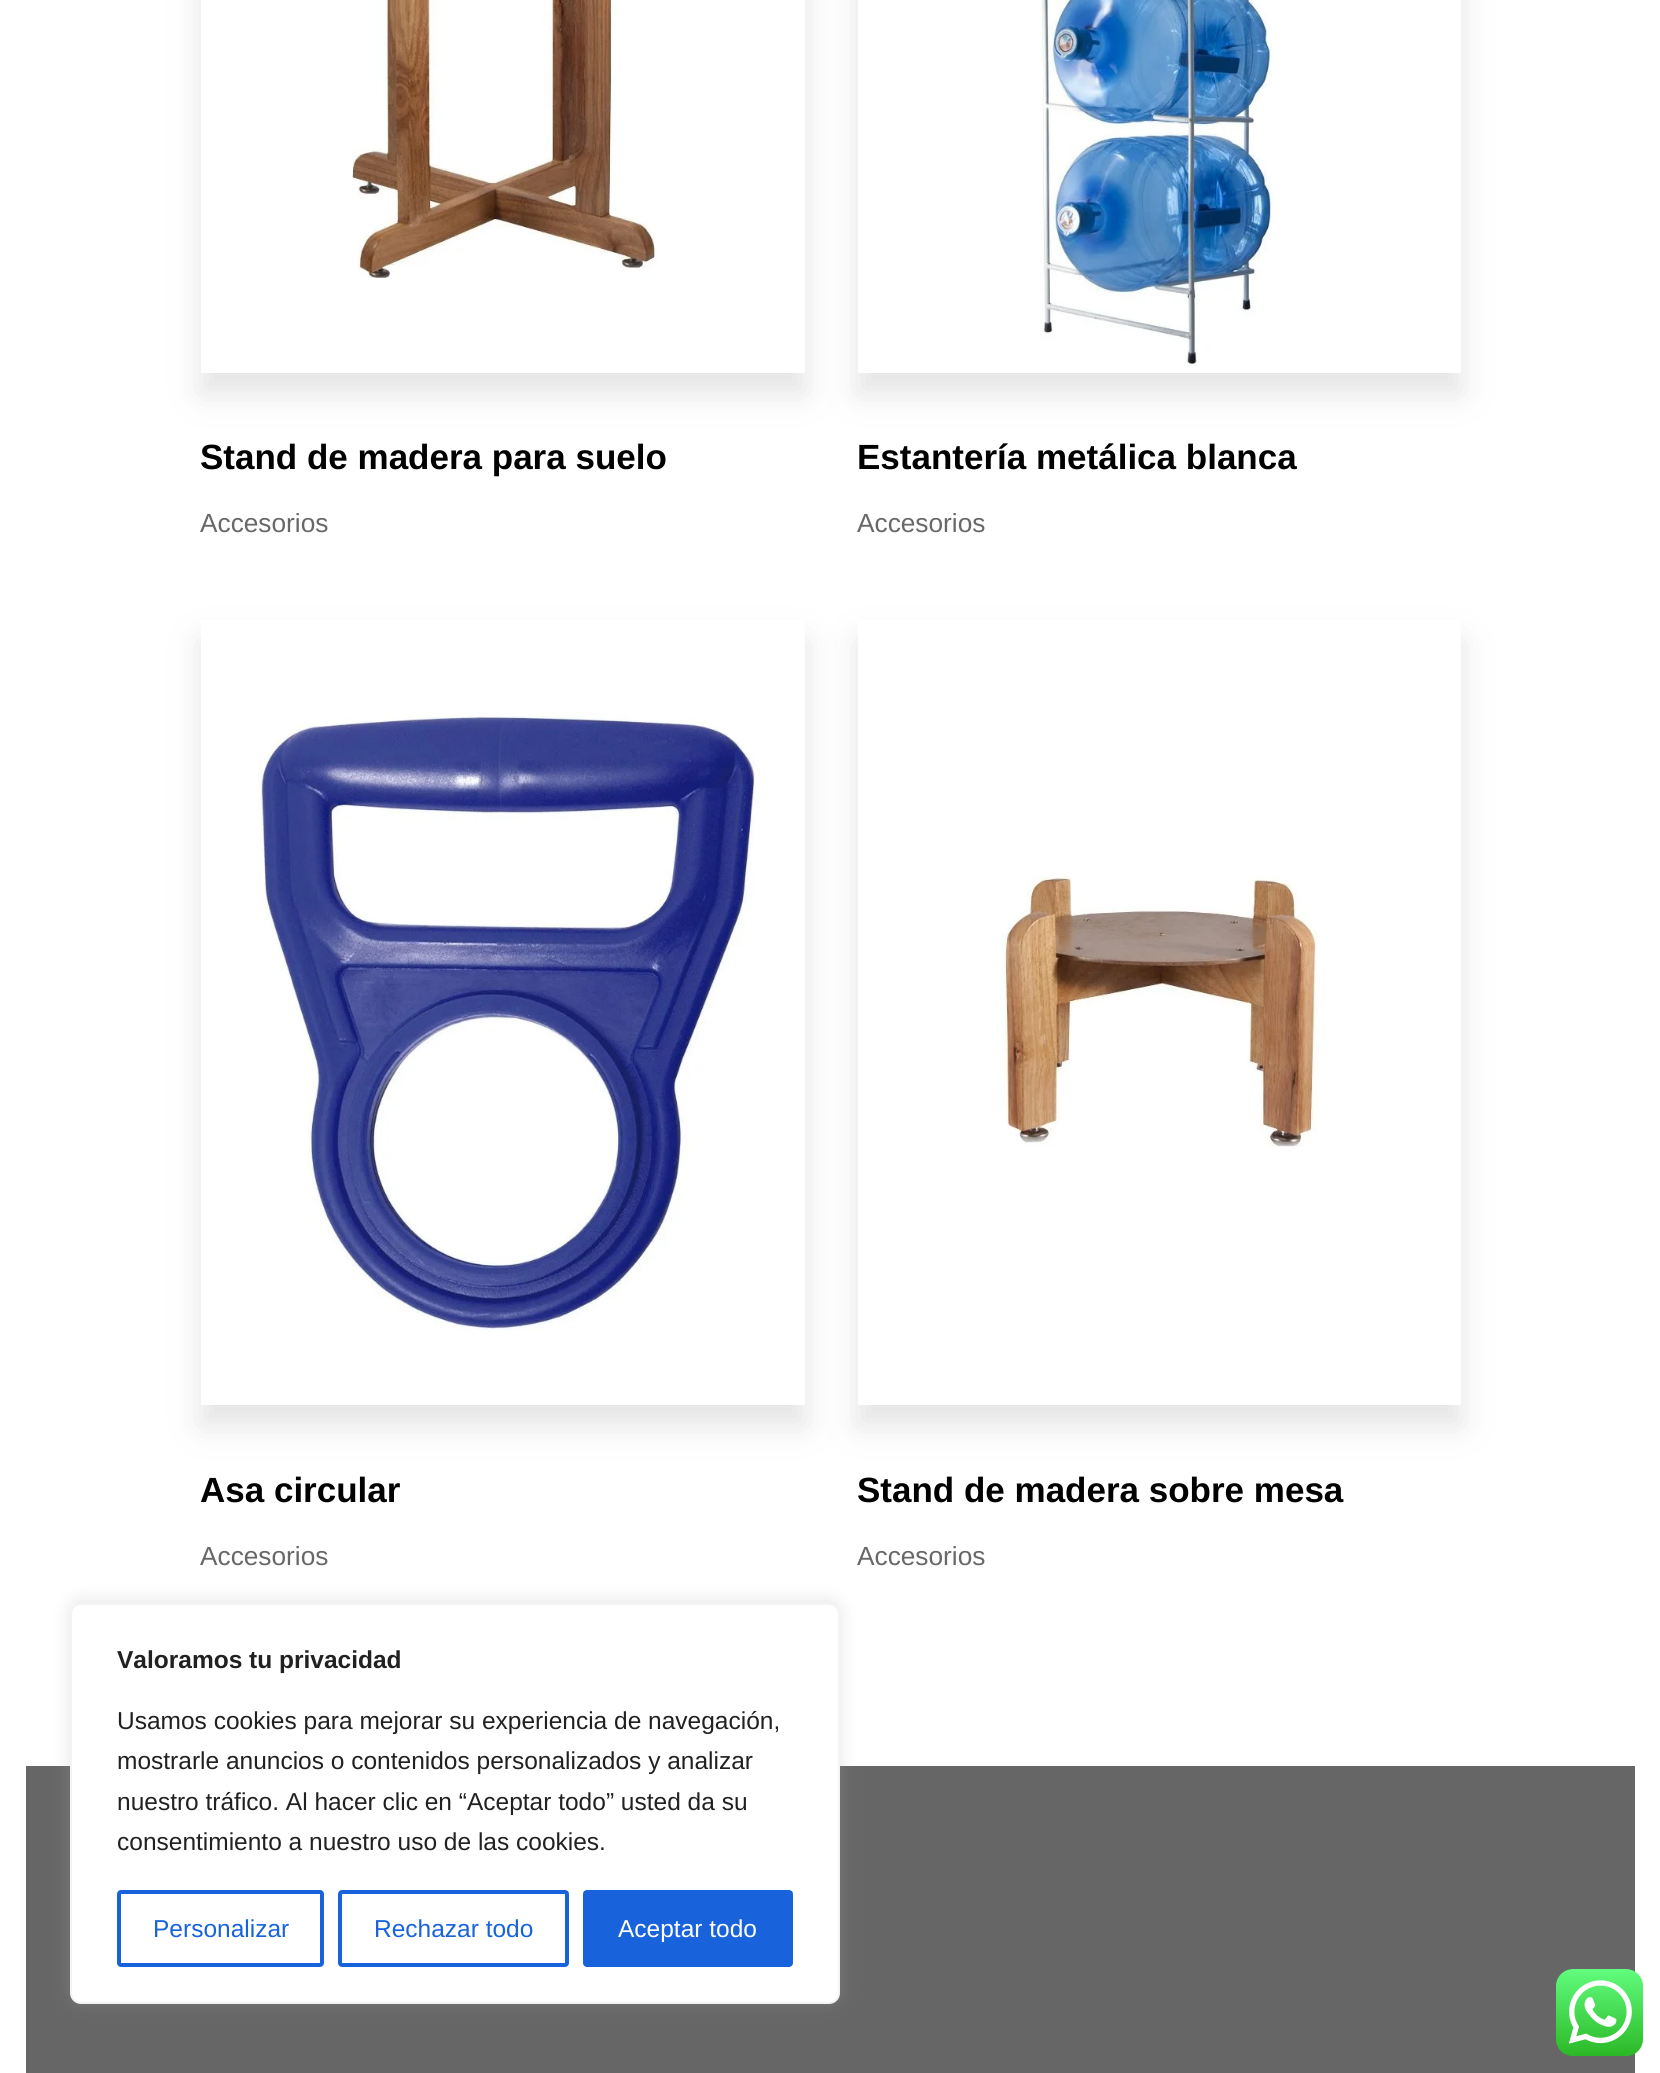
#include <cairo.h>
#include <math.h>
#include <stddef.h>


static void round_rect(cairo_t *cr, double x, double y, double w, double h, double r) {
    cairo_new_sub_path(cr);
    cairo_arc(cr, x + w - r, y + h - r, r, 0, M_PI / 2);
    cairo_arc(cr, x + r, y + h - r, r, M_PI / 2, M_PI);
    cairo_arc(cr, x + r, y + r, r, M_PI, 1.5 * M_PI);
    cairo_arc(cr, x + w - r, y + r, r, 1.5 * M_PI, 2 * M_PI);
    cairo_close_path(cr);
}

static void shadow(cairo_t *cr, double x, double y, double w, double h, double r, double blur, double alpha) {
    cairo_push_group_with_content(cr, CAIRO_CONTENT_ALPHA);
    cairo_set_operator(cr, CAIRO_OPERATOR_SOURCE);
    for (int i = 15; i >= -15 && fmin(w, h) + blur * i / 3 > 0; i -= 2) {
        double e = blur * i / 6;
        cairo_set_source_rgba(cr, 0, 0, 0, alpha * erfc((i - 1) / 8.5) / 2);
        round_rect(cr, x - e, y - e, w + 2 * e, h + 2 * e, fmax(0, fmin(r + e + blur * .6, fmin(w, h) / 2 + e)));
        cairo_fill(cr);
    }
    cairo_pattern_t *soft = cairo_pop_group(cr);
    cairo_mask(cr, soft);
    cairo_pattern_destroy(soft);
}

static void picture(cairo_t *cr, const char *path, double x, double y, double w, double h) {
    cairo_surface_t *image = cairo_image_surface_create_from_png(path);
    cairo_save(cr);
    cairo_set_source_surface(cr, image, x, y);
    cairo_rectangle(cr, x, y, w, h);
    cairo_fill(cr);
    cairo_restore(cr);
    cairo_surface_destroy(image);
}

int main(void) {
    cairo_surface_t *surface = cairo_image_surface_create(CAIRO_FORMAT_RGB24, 1660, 2073);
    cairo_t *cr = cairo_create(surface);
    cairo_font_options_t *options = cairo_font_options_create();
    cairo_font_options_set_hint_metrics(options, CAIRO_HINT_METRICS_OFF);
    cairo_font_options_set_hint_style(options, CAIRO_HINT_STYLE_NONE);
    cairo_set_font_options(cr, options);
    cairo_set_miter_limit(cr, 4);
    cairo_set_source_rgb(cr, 1, 1, 1);
    cairo_paint(cr);
    cairo_save(cr);
    cairo_set_fill_rule(cr, CAIRO_FILL_RULE_EVEN_ODD);
    cairo_new_path(cr);
    cairo_move_to(cr, 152, 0);
    cairo_line_to(cr, 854, 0);
    cairo_line_to(cr, 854, 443);
    cairo_line_to(cr, 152, 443);
    cairo_close_path(cr);
    cairo_move_to(cr, 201, -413);
    cairo_line_to(cr, 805, -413);
    cairo_line_to(cr, 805, 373);
    cairo_line_to(cr, 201, 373);
    cairo_close_path(cr);
    cairo_clip(cr);
    cairo_set_source_rgb(cr, 0.471, 0.471, 0.471);
    shadow(cr, 201, -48, 604, 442, 0, 16, 0.2);
    cairo_restore(cr);
    picture(cr, "img1.png", 351, 0, 306, 279);
    cairo_select_font_face(cr, "Liberation Sans", CAIRO_FONT_SLANT_NORMAL, CAIRO_FONT_WEIGHT_BOLD);
    cairo_set_font_size(cr, 35);
    cairo_set_source_rgb(cr, 0, 0, 0);
    cairo_move_to(cr, 200, 469);
    cairo_show_text(cr, "Stand de madera para suelo");
    cairo_select_font_face(cr, "Liberation Sans", CAIRO_FONT_SLANT_NORMAL, CAIRO_FONT_WEIGHT_NORMAL);
    cairo_set_font_size(cr, 26.25);
    cairo_set_source_rgb(cr, 0.408, 0.408, 0.408);
    cairo_move_to(cr, 200, 532);
    cairo_show_text(cr, "Accesorios");
    cairo_save(cr);
    cairo_set_fill_rule(cr, CAIRO_FILL_RULE_EVEN_ODD);
    cairo_new_path(cr);
    cairo_move_to(cr, 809, 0);
    cairo_line_to(cr, 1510, 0);
    cairo_line_to(cr, 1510, 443);
    cairo_line_to(cr, 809, 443);
    cairo_close_path(cr);
    cairo_move_to(cr, 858, -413);
    cairo_line_to(cr, 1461, -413);
    cairo_line_to(cr, 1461, 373);
    cairo_line_to(cr, 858, 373);
    cairo_close_path(cr);
    cairo_clip(cr);
    cairo_set_source_rgb(cr, 0.471, 0.471, 0.471);
    shadow(cr, 858, -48, 603, 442, 0, 16, 0.2);
    cairo_restore(cr);
    picture(cr, "img2.png", 1040, 0, 233, 367);
    cairo_select_font_face(cr, "Liberation Sans", CAIRO_FONT_SLANT_NORMAL, CAIRO_FONT_WEIGHT_BOLD);
    cairo_set_font_size(cr, 35);
    cairo_set_source_rgb(cr, 0, 0, 0);
    cairo_move_to(cr, 857, 469);
    cairo_show_text(cr, "Estantería metálica blanca");
    cairo_select_font_face(cr, "Liberation Sans", CAIRO_FONT_SLANT_NORMAL, CAIRO_FONT_WEIGHT_NORMAL);
    cairo_set_font_size(cr, 26.25);
    cairo_set_source_rgb(cr, 0.408, 0.408, 0.408);
    cairo_move_to(cr, 857, 532);
    cairo_show_text(cr, "Accesorios");
    cairo_save(cr);
    cairo_set_fill_rule(cr, CAIRO_FILL_RULE_EVEN_ODD);
    cairo_new_path(cr);
    cairo_move_to(cr, 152, 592);
    cairo_line_to(cr, 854, 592);
    cairo_line_to(cr, 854, 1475);
    cairo_line_to(cr, 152, 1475);
    cairo_close_path(cr);
    cairo_move_to(cr, 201, 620);
    cairo_line_to(cr, 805, 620);
    cairo_line_to(cr, 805, 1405);
    cairo_line_to(cr, 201, 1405);
    cairo_close_path(cr);
    cairo_clip(cr);
    cairo_set_source_rgb(cr, 0.471, 0.471, 0.471);
    shadow(cr, 201, 641, 604, 785, 0, 16, 0.2);
    cairo_restore(cr);
    picture(cr, "img3.png", 258, 712, 497, 619);
    cairo_select_font_face(cr, "Liberation Sans", CAIRO_FONT_SLANT_NORMAL, CAIRO_FONT_WEIGHT_BOLD);
    cairo_set_font_size(cr, 35);
    cairo_set_source_rgb(cr, 0, 0, 0);
    cairo_move_to(cr, 200, 1502);
    cairo_show_text(cr, "Asa circular");
    cairo_select_font_face(cr, "Liberation Sans", CAIRO_FONT_SLANT_NORMAL, CAIRO_FONT_WEIGHT_NORMAL);
    cairo_set_font_size(cr, 26.25);
    cairo_set_source_rgb(cr, 0.408, 0.408, 0.408);
    cairo_move_to(cr, 200, 1565);
    cairo_show_text(cr, "Accesorios");
    cairo_save(cr);
    cairo_set_fill_rule(cr, CAIRO_FILL_RULE_EVEN_ODD);
    cairo_new_path(cr);
    cairo_move_to(cr, 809, 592);
    cairo_line_to(cr, 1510, 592);
    cairo_line_to(cr, 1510, 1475);
    cairo_line_to(cr, 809, 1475);
    cairo_close_path(cr);
    cairo_move_to(cr, 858, 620);
    cairo_line_to(cr, 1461, 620);
    cairo_line_to(cr, 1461, 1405);
    cairo_line_to(cr, 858, 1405);
    cairo_close_path(cr);
    cairo_clip(cr);
    cairo_set_source_rgb(cr, 0.471, 0.471, 0.471);
    shadow(cr, 858, 641, 603, 785, 0, 16, 0.2);
    cairo_restore(cr);
    picture(cr, "img4.png", 998, 876, 320, 271);
    cairo_select_font_face(cr, "Liberation Sans", CAIRO_FONT_SLANT_NORMAL, CAIRO_FONT_WEIGHT_BOLD);
    cairo_set_font_size(cr, 35);
    cairo_set_source_rgb(cr, 0, 0, 0);
    cairo_move_to(cr, 857, 1502);
    cairo_show_text(cr, "Stand de madera sobre mesa");
    cairo_select_font_face(cr, "Liberation Sans", CAIRO_FONT_SLANT_NORMAL, CAIRO_FONT_WEIGHT_NORMAL);
    cairo_set_font_size(cr, 26.25);
    cairo_set_source_rgb(cr, 0.408, 0.408, 0.408);
    cairo_move_to(cr, 857, 1565);
    cairo_show_text(cr, "Accesorios");
    cairo_set_source_rgb(cr, 0.4, 0.4, 0.4);
    cairo_rectangle(cr, 26, 1766, 1609, 307);
    cairo_fill(cr);
    cairo_set_source_rgb(cr, 0.675, 0.671, 0.671);
    shadow(cr, 70, 1601, 770, 401, 11, 9, 0.3);
    cairo_set_source_rgb(cr, 1, 1, 1);
    round_rect(cr, 71, 1604, 768, 399, 10);
    cairo_fill_preserve(cr);
    cairo_set_source_rgb(cr, 0.957, 0.957, 0.957);
    cairo_stroke(cr);
    cairo_select_font_face(cr, "Liberation Sans", CAIRO_FONT_SLANT_NORMAL, CAIRO_FONT_WEIGHT_BOLD);
    cairo_set_font_size(cr, 24.5);
    cairo_set_source_rgb(cr, 0.129, 0.129, 0.129);
    cairo_move_to(cr, 117, 1668);
    cairo_show_text(cr, "Valoramos tu privacidad");
    cairo_select_font_face(cr, "Liberation Sans", CAIRO_FONT_SLANT_NORMAL, CAIRO_FONT_WEIGHT_NORMAL);
    cairo_move_to(cr, 117, 1729);
    cairo_show_text(cr, "Usamos cookies para mejorar su experiencia de navegación,");
    cairo_move_to(cr, 117, 1769);
    cairo_show_text(cr, "mostrarle anuncios o contenidos personalizados y analizar");
    cairo_move_to(cr, 117, 1810);
    cairo_show_text(cr, "nuestro tráfico. Al hacer clic en “Aceptar todo” usted da su");
    cairo_move_to(cr, 117, 1850);
    cairo_show_text(cr, "consentimiento a nuestro uso de las cookies.");
    round_rect(cr, 119, 1892, 203, 73, 2);
    cairo_set_source_rgb(cr, 0.094, 0.388, 0.863);
    cairo_set_line_width(cr, 4);
    cairo_stroke(cr);
    cairo_move_to(cr, 153, 1937);
    cairo_show_text(cr, "Personalizar");
    round_rect(cr, 340, 1892, 227, 73, 2);
    cairo_stroke(cr);
    cairo_move_to(cr, 374, 1937);
    cairo_show_text(cr, "Rechazar todo");
    round_rect(cr, 585, 1892, 206, 73, 2);
    cairo_fill_preserve(cr);
    cairo_stroke(cr);
    cairo_set_source_rgb(cr, 1, 1, 1);
    cairo_move_to(cr, 618, 1937);
    cairo_show_text(cr, "Aceptar todo");
    picture(cr, "img5.png", 1556, 1969, 87, 87);
    cairo_surface_write_to_png(surface, "page.png");
    cairo_font_options_destroy(options);
    cairo_destroy(cr);
    cairo_surface_destroy(surface);
    return 0;
}
